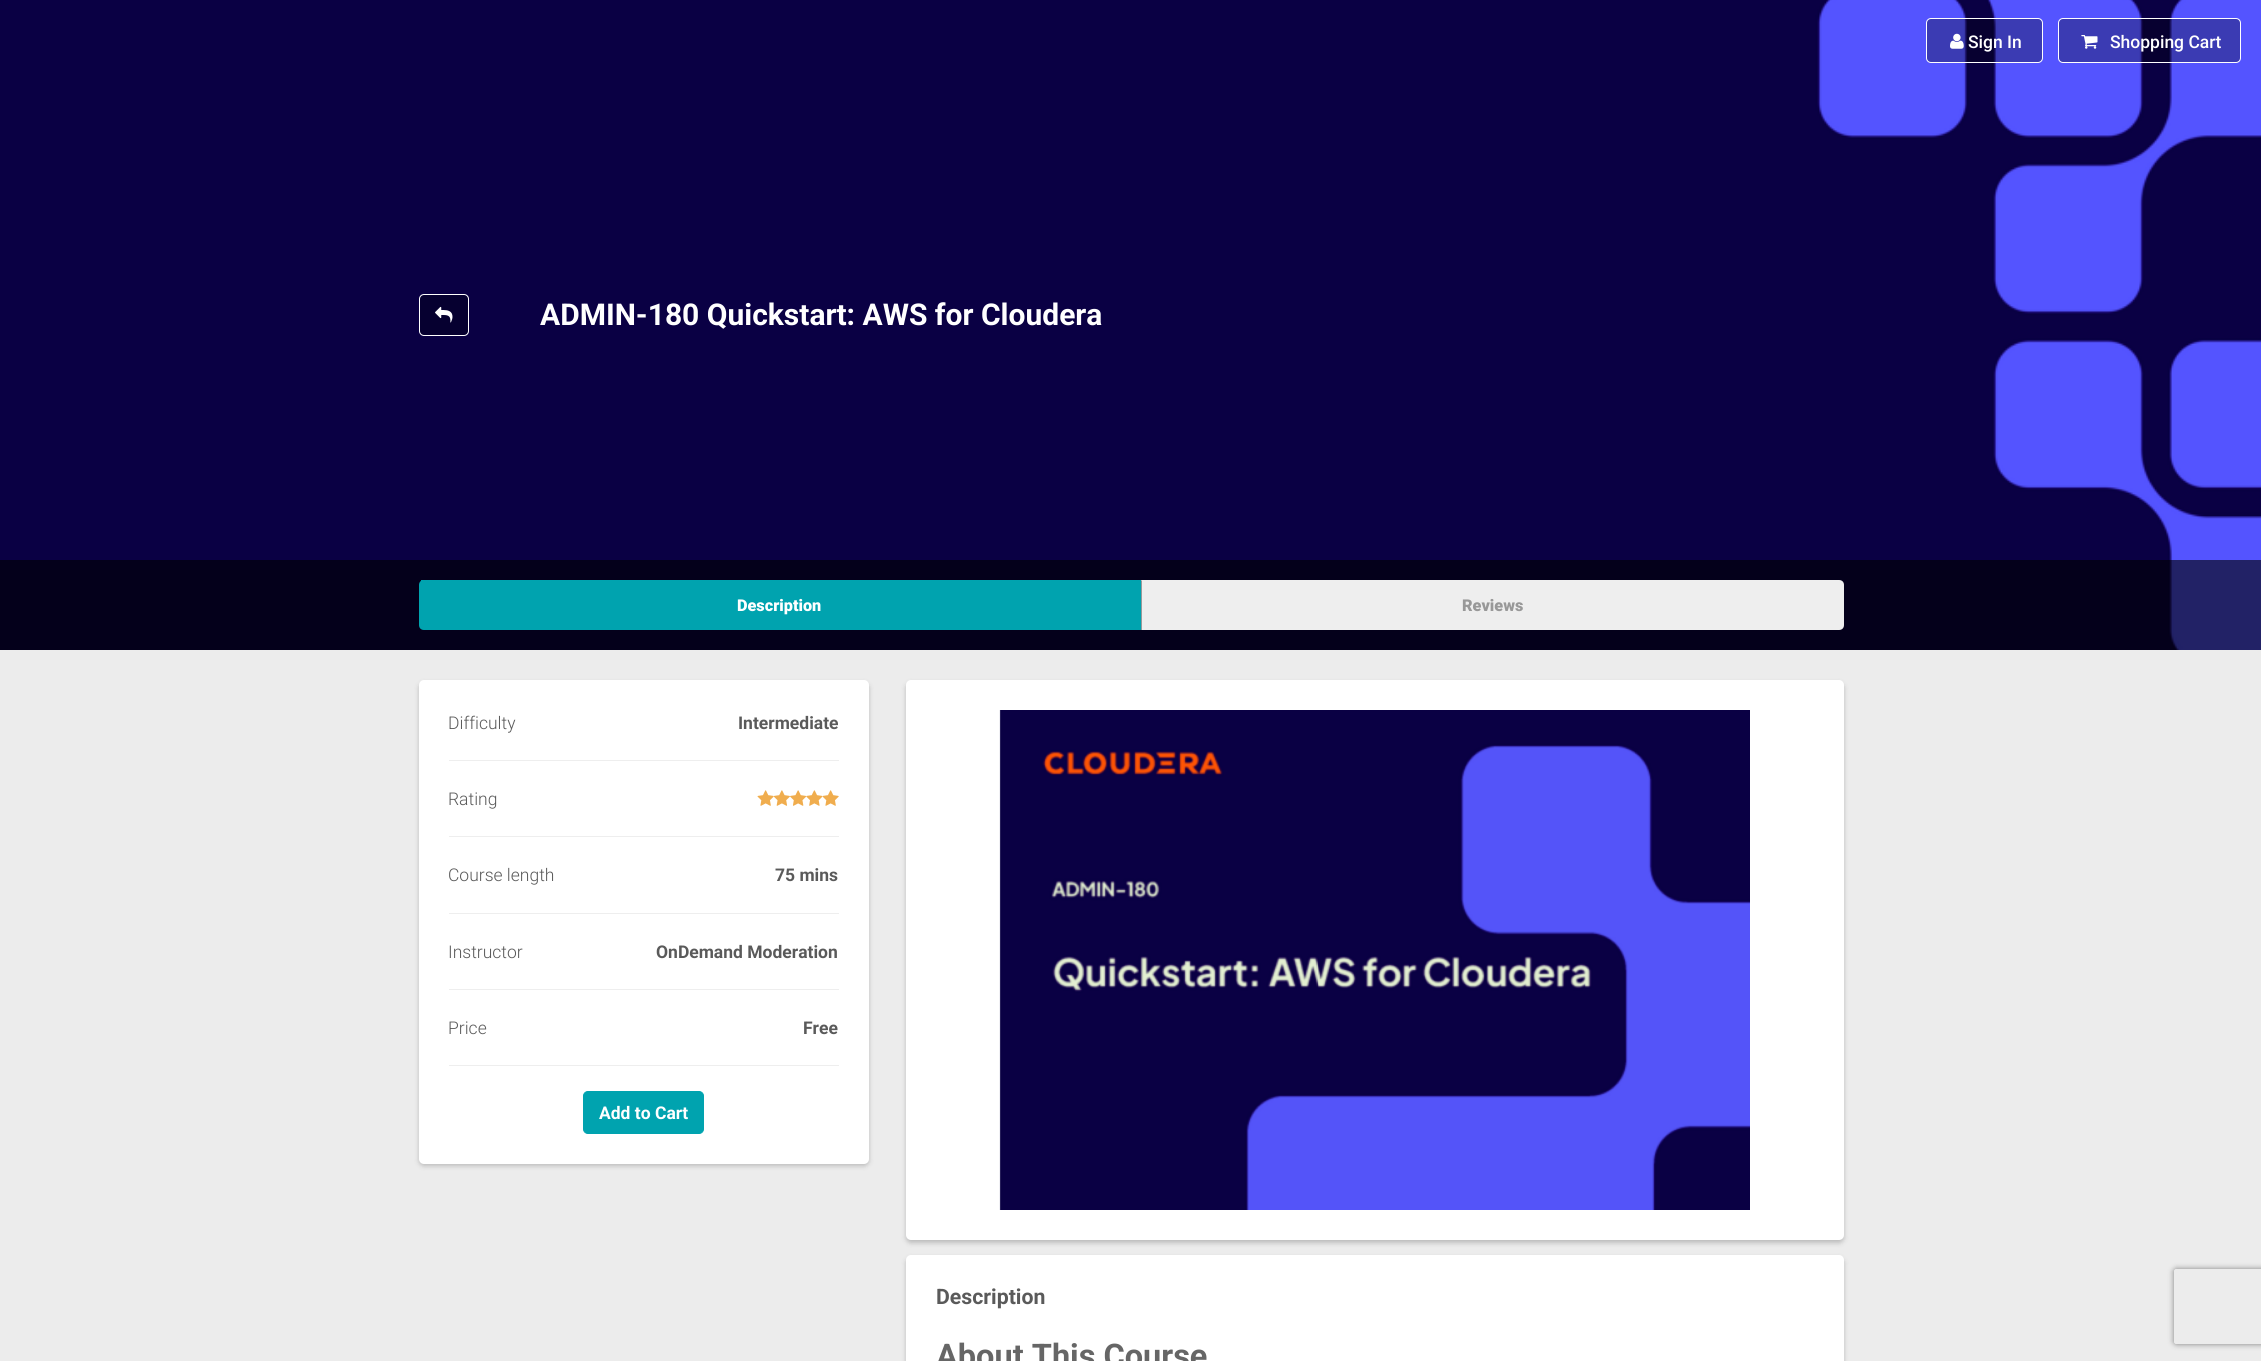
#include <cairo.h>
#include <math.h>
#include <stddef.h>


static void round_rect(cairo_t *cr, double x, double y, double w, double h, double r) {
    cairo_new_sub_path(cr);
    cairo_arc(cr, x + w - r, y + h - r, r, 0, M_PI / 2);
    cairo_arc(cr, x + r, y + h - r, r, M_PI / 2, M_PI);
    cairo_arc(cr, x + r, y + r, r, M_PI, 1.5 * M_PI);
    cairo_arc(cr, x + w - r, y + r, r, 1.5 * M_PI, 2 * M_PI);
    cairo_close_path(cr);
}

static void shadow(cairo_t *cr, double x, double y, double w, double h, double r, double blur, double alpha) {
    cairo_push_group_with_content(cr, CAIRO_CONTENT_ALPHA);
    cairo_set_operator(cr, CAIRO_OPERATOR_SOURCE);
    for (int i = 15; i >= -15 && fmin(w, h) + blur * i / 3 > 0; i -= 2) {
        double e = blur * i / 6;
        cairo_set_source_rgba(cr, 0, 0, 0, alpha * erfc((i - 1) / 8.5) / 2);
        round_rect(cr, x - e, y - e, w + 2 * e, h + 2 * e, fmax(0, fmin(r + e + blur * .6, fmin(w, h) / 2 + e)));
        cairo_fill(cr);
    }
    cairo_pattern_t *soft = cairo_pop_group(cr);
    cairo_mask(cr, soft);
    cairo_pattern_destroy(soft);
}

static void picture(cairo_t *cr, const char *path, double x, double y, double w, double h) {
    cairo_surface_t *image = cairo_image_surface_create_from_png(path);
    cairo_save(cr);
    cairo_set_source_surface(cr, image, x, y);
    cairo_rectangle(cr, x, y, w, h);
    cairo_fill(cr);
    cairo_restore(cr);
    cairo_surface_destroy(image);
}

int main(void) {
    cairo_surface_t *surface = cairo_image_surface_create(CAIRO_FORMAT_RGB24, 2261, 1361);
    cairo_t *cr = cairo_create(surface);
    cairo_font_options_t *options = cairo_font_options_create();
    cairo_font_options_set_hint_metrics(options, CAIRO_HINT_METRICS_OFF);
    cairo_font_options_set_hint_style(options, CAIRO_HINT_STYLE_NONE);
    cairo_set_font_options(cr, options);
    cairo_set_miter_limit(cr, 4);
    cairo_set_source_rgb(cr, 0.925, 0.925, 0.925);
    cairo_paint(cr);
    picture(cr, "img3.png", 0, 0, 2261, 650);
    cairo_set_source_rgba(cr, 0, 0, 0, 0.3);
    round_rect(cr, 1926.5, 18.5, 116, 44, 4.5);
    cairo_fill_preserve(cr);
    cairo_set_source_rgb(cr, 1, 1, 1);
    cairo_set_line_width(cr, 1);
    cairo_stroke(cr);
    picture(cr, "img1.png", 1950, 33, 14, 16);
    cairo_select_font_face(cr, "Roboto Medium", CAIRO_FONT_SLANT_NORMAL, CAIRO_FONT_WEIGHT_NORMAL);
    cairo_set_font_size(cr, 17.5);
    cairo_move_to(cr, 1968, 48);
    cairo_show_text(cr, "Sign In");
    cairo_set_source_rgba(cr, 0, 0, 0, 0.3);
    round_rect(cr, 2058.5, 18.5, 182, 44, 4.5);
    cairo_fill_preserve(cr);
    cairo_set_source_rgb(cr, 1, 1, 1);
    cairo_stroke(cr);
    picture(cr, "img2.png", 2081, 35, 17, 14);
    cairo_move_to(cr, 2110, 48);
    cairo_show_text(cr, "Shopping Cart");
    cairo_set_source_rgb(cr, 0.027, 0, 0.188);
    round_rect(cr, 419.5, 294.5, 49, 41, 4.5);
    cairo_fill_preserve(cr);
    cairo_set_source_rgb(cr, 1, 1, 1);
    cairo_stroke(cr);
    picture(cr, "img4.png", 435, 306, 18, 17);
    cairo_select_font_face(cr, "Roboto", CAIRO_FONT_SLANT_NORMAL, CAIRO_FONT_WEIGHT_BOLD);
    cairo_set_font_size(cr, 30);
    cairo_move_to(cr, 540, 325);
    cairo_show_text(cr, "ADMIN-180 Quickstart: AWS for Cloudera");
    cairo_set_source_rgba(cr, 0, 0, 0, 0.6);
    cairo_rectangle(cr, 0, 560, 2261, 90);
    cairo_fill(cr);
    cairo_set_source_rgb(cr, 0, 0.639, 0.686);
    cairo_new_path(cr);
    cairo_move_to(cr, 424, 580);
    cairo_line_to(cr, 1141, 580);
    cairo_line_to(cr, 1141, 630);
    cairo_line_to(cr, 424, 630);
    cairo_curve_to(cr, 421, 630, 419, 628, 419, 625);
    cairo_line_to(cr, 419, 585);
    cairo_curve_to(cr, 419, 582, 421, 580, 424, 580);
    cairo_close_path(cr);
    cairo_fill(cr);
    cairo_rectangle(cr, 421, 580, 3, 1);
    cairo_fill(cr);
    cairo_select_font_face(cr, "Roboto Black", CAIRO_FONT_SLANT_NORMAL, CAIRO_FONT_WEIGHT_NORMAL);
    cairo_set_font_size(cr, 16.25);
    cairo_set_source_rgb(cr, 1, 1, 1);
    cairo_move_to(cr, 737, 611);
    cairo_show_text(cr, "Description");
    cairo_set_source_rgb(cr, 0.933, 0.933, 0.933);
    cairo_new_path(cr);
    cairo_move_to(cr, 1141, 580);
    cairo_line_to(cr, 1839, 580);
    cairo_curve_to(cr, 1842, 580, 1844, 582, 1844, 585);
    cairo_line_to(cr, 1844, 625);
    cairo_curve_to(cr, 1844, 628, 1842, 630, 1839, 630);
    cairo_line_to(cr, 1141, 630);
    cairo_close_path(cr);
    cairo_fill(cr);
    cairo_set_source_rgb(cr, 0.6, 0.6, 0.6);
    cairo_new_path(cr);
    cairo_move_to(cr, 1142, 581);
    cairo_line_to(cr, 1141, 580);
    cairo_line_to(cr, 1141, 630);
    cairo_line_to(cr, 1142, 630);
    cairo_close_path(cr);
    cairo_fill(cr);
    cairo_set_source_rgb(cr, 0.596, 0.596, 0.596);
    cairo_move_to(cr, 1462, 611);
    cairo_show_text(cr, "Reviews");
    cairo_set_source_rgb(cr, 0, 0, 0);
    shadow(cr, 419, 683, 450, 483, 5, 2.5, 0.21);
    cairo_set_source_rgb(cr, 1, 1, 1);
    round_rect(cr, 419, 680, 450, 484, 5);
    cairo_fill(cr);
    cairo_select_font_face(cr, "Roboto Light", CAIRO_FONT_SLANT_NORMAL, CAIRO_FONT_WEIGHT_NORMAL);
    cairo_set_font_size(cr, 17.5);
    cairo_set_source_rgb(cr, 0.353, 0.353, 0.353);
    cairo_move_to(cr, 448, 729);
    cairo_show_text(cr, "Difficulty");
    cairo_select_font_face(cr, "Roboto", CAIRO_FONT_SLANT_NORMAL, CAIRO_FONT_WEIGHT_BOLD);
    cairo_move_to(cr, 738, 729);
    cairo_show_text(cr, "Intermediate");
    cairo_set_source_rgb(cr, 0.933, 0.933, 0.933);
    cairo_rectangle(cr, 449, 760, 390, 1);
    cairo_fill(cr);
    cairo_select_font_face(cr, "Roboto Light", CAIRO_FONT_SLANT_NORMAL, CAIRO_FONT_WEIGHT_NORMAL);
    cairo_set_source_rgb(cr, 0.353, 0.353, 0.353);
    cairo_move_to(cr, 448, 805);
    cairo_show_text(cr, "Rating");
    picture(cr, "img5.png", 757, 790, 17, 16);
    picture(cr, "img6.png", 773, 790, 17, 16);
    picture(cr, "img7.png", 790, 790, 17, 16);
    picture(cr, "img8.png", 806, 790, 17, 16);
    picture(cr, "img9.png", 822, 790, 17, 16);
    cairo_set_source_rgb(cr, 0.933, 0.933, 0.933);
    cairo_rectangle(cr, 449, 836, 390, 1);
    cairo_fill(cr);
    cairo_set_source_rgb(cr, 0.353, 0.353, 0.353);
    cairo_move_to(cr, 448, 881);
    cairo_show_text(cr, "Course length");
    cairo_select_font_face(cr, "Roboto", CAIRO_FONT_SLANT_NORMAL, CAIRO_FONT_WEIGHT_BOLD);
    cairo_move_to(cr, 775, 881);
    cairo_show_text(cr, "75 mins");
    cairo_set_source_rgb(cr, 0.933, 0.933, 0.933);
    cairo_rectangle(cr, 449, 913, 390, 1);
    cairo_fill(cr);
    cairo_select_font_face(cr, "Roboto Light", CAIRO_FONT_SLANT_NORMAL, CAIRO_FONT_WEIGHT_NORMAL);
    cairo_set_source_rgb(cr, 0.353, 0.353, 0.353);
    cairo_move_to(cr, 448, 958);
    cairo_show_text(cr, "Instructor");
    cairo_select_font_face(cr, "Roboto", CAIRO_FONT_SLANT_NORMAL, CAIRO_FONT_WEIGHT_BOLD);
    cairo_move_to(cr, 656, 958);
    cairo_show_text(cr, "OnDemand Moderation");
    cairo_set_source_rgb(cr, 0.933, 0.933, 0.933);
    cairo_rectangle(cr, 449, 989, 390, 1);
    cairo_fill(cr);
    cairo_select_font_face(cr, "Roboto Light", CAIRO_FONT_SLANT_NORMAL, CAIRO_FONT_WEIGHT_NORMAL);
    cairo_set_source_rgb(cr, 0.353, 0.353, 0.353);
    cairo_move_to(cr, 448, 1034);
    cairo_show_text(cr, "Price");
    cairo_select_font_face(cr, "Roboto", CAIRO_FONT_SLANT_NORMAL, CAIRO_FONT_WEIGHT_BOLD);
    cairo_move_to(cr, 803, 1034);
    cairo_show_text(cr, "Free");
    cairo_set_source_rgb(cr, 0.933, 0.933, 0.933);
    cairo_rectangle(cr, 449, 1065, 390, 1);
    cairo_fill(cr);
    cairo_set_source_rgb(cr, 0, 0.639, 0.686);
    round_rect(cr, 583.5, 1091.5, 120, 42, 4.5);
    cairo_fill_preserve(cr);
    cairo_stroke(cr);
    cairo_set_source_rgb(cr, 1, 1, 1);
    cairo_move_to(cr, 599, 1119);
    cairo_show_text(cr, "Add to Cart");
    cairo_set_source_rgb(cr, 0, 0, 0);
    shadow(cr, 906, 683, 938, 560, 5, 2.5, 0.21);
    cairo_set_source_rgb(cr, 1, 1, 1);
    round_rect(cr, 906, 680, 938, 560, 5);
    cairo_fill(cr);
    picture(cr, "img10.png", 999, 710, 751, 500);
    cairo_set_source_rgb(cr, 0, 0, 0);
    shadow(cr, 906, 1258, 938, 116, 5, 2.5, 0.21);
    cairo_set_source_rgb(cr, 1, 1, 1);
    round_rect(cr, 906, 1255, 938, 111, 5);
    cairo_fill(cr);
    cairo_set_font_size(cr, 21.25);
    cairo_set_source_rgb(cr, 0.353, 0.353, 0.353);
    cairo_move_to(cr, 936, 1304);
    cairo_show_text(cr, "Description");
    cairo_set_font_size(cr, 32.5);
    cairo_set_source_rgb(cr, 0.4, 0.4, 0.4);
    cairo_move_to(cr, 936, 1367);
    cairo_show_text(cr, "About This Course");
    cairo_save(cr);
    cairo_set_fill_rule(cr, CAIRO_FILL_RULE_EVEN_ODD);
    cairo_new_path(cr);
    cairo_move_to(cr, 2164, 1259);
    cairo_line_to(cr, 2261, 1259);
    cairo_line_to(cr, 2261, 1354);
    cairo_line_to(cr, 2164, 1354);
    cairo_close_path(cr);
    cairo_move_to(cr, 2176.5, 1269);
    cairo_line_to(cr, 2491.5, 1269);
    cairo_curve_to(cr, 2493, 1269, 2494, 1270, 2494, 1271.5);
    cairo_line_to(cr, 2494, 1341.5);
    cairo_curve_to(cr, 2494, 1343, 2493, 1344, 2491.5, 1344);
    cairo_line_to(cr, 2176.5, 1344);
    cairo_curve_to(cr, 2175, 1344, 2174, 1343, 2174, 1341.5);
    cairo_line_to(cr, 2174, 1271.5);
    cairo_curve_to(cr, 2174, 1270, 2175, 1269, 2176.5, 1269);
    cairo_close_path(cr);
    cairo_clip(cr);
    cairo_set_source_rgb(cr, 0.502, 0.502, 0.502);
    shadow(cr, 2174, 1269, 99, 75, 2.5, 3, 1);
    cairo_restore(cr);
    cairo_surface_write_to_png(surface, "page.png");
    cairo_font_options_destroy(options);
    cairo_destroy(cr);
    cairo_surface_destroy(surface);
    return 0;
}
